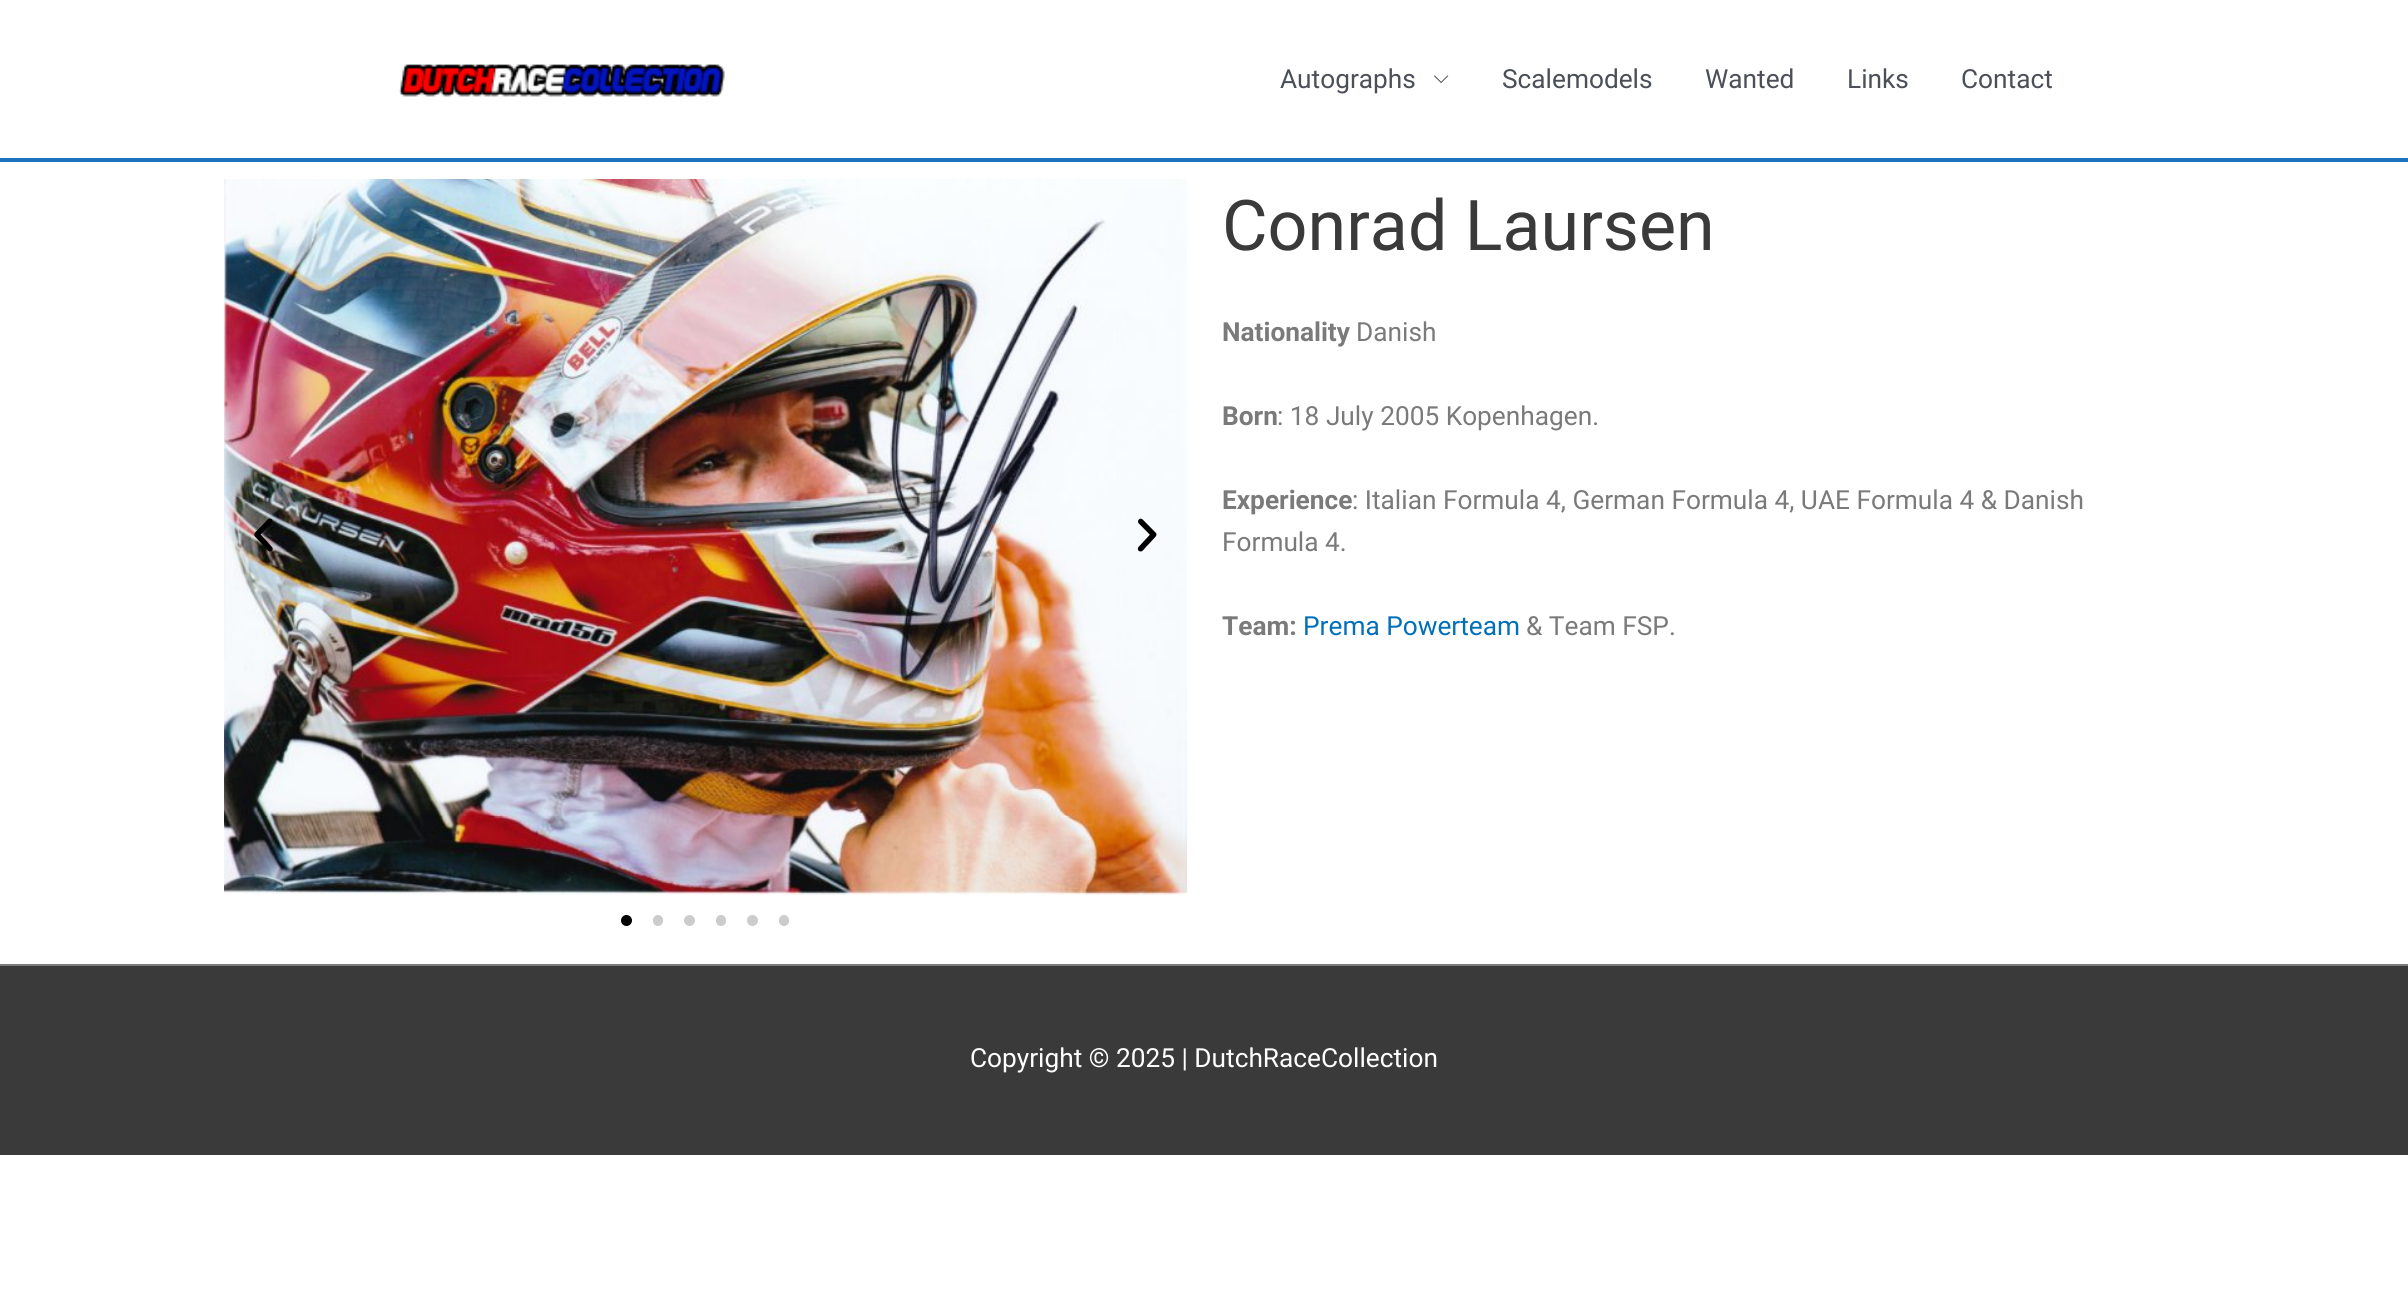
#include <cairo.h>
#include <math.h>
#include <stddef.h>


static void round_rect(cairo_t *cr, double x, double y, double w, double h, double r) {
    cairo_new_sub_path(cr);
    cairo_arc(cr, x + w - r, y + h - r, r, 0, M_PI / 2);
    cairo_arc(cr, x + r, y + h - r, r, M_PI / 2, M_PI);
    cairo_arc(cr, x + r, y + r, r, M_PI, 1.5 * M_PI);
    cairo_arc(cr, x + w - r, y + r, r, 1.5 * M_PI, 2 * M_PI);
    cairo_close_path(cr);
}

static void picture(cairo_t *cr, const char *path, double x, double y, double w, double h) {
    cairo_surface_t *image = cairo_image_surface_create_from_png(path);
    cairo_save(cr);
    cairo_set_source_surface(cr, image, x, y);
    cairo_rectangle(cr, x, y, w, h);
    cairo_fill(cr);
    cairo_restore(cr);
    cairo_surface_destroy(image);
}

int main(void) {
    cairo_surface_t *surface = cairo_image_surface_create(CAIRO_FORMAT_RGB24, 2408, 1305);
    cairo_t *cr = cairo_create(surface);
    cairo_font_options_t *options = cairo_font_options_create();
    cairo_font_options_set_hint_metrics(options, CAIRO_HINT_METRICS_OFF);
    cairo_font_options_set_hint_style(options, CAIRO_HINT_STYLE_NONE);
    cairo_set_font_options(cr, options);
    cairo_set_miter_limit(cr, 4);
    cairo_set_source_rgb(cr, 1, 1, 1);
    cairo_paint(cr);
    cairo_set_source_rgb(cr, 0.118, 0.451, 0.745);
    cairo_rectangle(cr, 0, 158, 2408, 4);
    cairo_fill(cr);
    picture(cr, "img1.png", 399, 64, 326, 33);
    cairo_select_font_face(cr, "Roboto", CAIRO_FONT_SLANT_NORMAL, CAIRO_FONT_WEIGHT_NORMAL);
    cairo_set_font_size(cr, 26.25);
    cairo_set_source_rgb(cr, 0.294, 0.31, 0.345);
    cairo_move_to(cr, 1280, 88);
    cairo_show_text(cr, "Autographs");
    picture(cr, "img2.png", 1434, 75, 15, 8);
    cairo_move_to(cr, 1502, 88);
    cairo_show_text(cr, "Scalemodels");
    cairo_move_to(cr, 1705, 88);
    cairo_show_text(cr, "Wanted");
    cairo_move_to(cr, 1847, 88);
    cairo_show_text(cr, "Links");
    cairo_move_to(cr, 1961, 88);
    cairo_show_text(cr, "Contact");
    picture(cr, "img3.png", 224, 179, 963, 716);
    picture(cr, "img4.png", 254, 518, 19, 34);
    picture(cr, "img5.png", 1137, 518, 20, 34);
    cairo_set_source_rgb(cr, 0, 0, 0);
    cairo_arc(cr, 626.5, 920.5, 5.5, 0, 2 * M_PI);
    cairo_fill(cr);
    cairo_set_source_rgb(cr, 0.8, 0.8, 0.8);
    round_rect(cr, 653, 915, 10, 11, 5);
    cairo_fill(cr);
    cairo_arc(cr, 689.5, 920.5, 5.5, 0, 2 * M_PI);
    cairo_fill(cr);
    round_rect(cr, 716, 915, 10, 11, 5);
    cairo_fill(cr);
    cairo_arc(cr, 752.5, 920.5, 5.5, 0, 2 * M_PI);
    cairo_fill(cr);
    round_rect(cr, 779, 915, 10, 11, 5);
    cairo_fill(cr);
    cairo_set_font_size(cr, 70);
    cairo_set_source_rgb(cr, 0.227, 0.227, 0.227);
    cairo_move_to(cr, 1222, 250);
    cairo_show_text(cr, "Conrad Laursen");
    cairo_select_font_face(cr, "Roboto", CAIRO_FONT_SLANT_NORMAL, CAIRO_FONT_WEIGHT_BOLD);
    cairo_set_font_size(cr, 26.25);
    cairo_set_source_rgb(cr, 0.478, 0.478, 0.478);
    cairo_move_to(cr, 1222, 341);
    cairo_show_text(cr, "Nationality");
    cairo_select_font_face(cr, "Roboto", CAIRO_FONT_SLANT_NORMAL, CAIRO_FONT_WEIGHT_NORMAL);
    cairo_move_to(cr, 1356, 341);
    cairo_show_text(cr, "Danish");
    cairo_select_font_face(cr, "Roboto", CAIRO_FONT_SLANT_NORMAL, CAIRO_FONT_WEIGHT_BOLD);
    cairo_move_to(cr, 1222, 425);
    cairo_show_text(cr, "Born");
    cairo_select_font_face(cr, "Roboto", CAIRO_FONT_SLANT_NORMAL, CAIRO_FONT_WEIGHT_NORMAL);
    cairo_move_to(cr, 1277, 425);
    cairo_show_text(cr, ": 18 July 2005 Kopenhagen.");
    cairo_select_font_face(cr, "Roboto", CAIRO_FONT_SLANT_NORMAL, CAIRO_FONT_WEIGHT_BOLD);
    cairo_move_to(cr, 1222, 509);
    cairo_show_text(cr, "Experience");
    cairo_select_font_face(cr, "Roboto", CAIRO_FONT_SLANT_NORMAL, CAIRO_FONT_WEIGHT_NORMAL);
    cairo_move_to(cr, 1352, 509);
    cairo_show_text(cr, ": Italian Formula 4, German Formula 4, UAE Formula 4 & Danish");
    cairo_move_to(cr, 1222, 551);
    cairo_show_text(cr, "Formula 4.");
    cairo_select_font_face(cr, "Roboto", CAIRO_FONT_SLANT_NORMAL, CAIRO_FONT_WEIGHT_BOLD);
    cairo_move_to(cr, 1222, 635);
    cairo_show_text(cr, "Team:");
    cairo_select_font_face(cr, "Roboto", CAIRO_FONT_SLANT_NORMAL, CAIRO_FONT_WEIGHT_NORMAL);
    cairo_set_source_rgb(cr, 0.004, 0.439, 0.725);
    cairo_move_to(cr, 1303, 635);
    cairo_show_text(cr, "Prema Powerteam");
    cairo_set_source_rgb(cr, 0.478, 0.478, 0.478);
    cairo_move_to(cr, 1526, 635);
    cairo_show_text(cr, "& Team FSP.");
    cairo_rectangle(cr, 0, 964, 2408, 2);
    cairo_fill(cr);
    cairo_set_source_rgb(cr, 0.227, 0.227, 0.227);
    cairo_rectangle(cr, 0, 966, 2408, 189);
    cairo_fill(cr);
    cairo_set_source_rgb(cr, 1, 1, 1);
    cairo_move_to(cr, 970, 1067);
    cairo_show_text(cr, "Copyright © 2025 | DutchRaceCollection");
    cairo_surface_write_to_png(surface, "page.png");
    cairo_font_options_destroy(options);
    cairo_destroy(cr);
    cairo_surface_destroy(surface);
    return 0;
}
